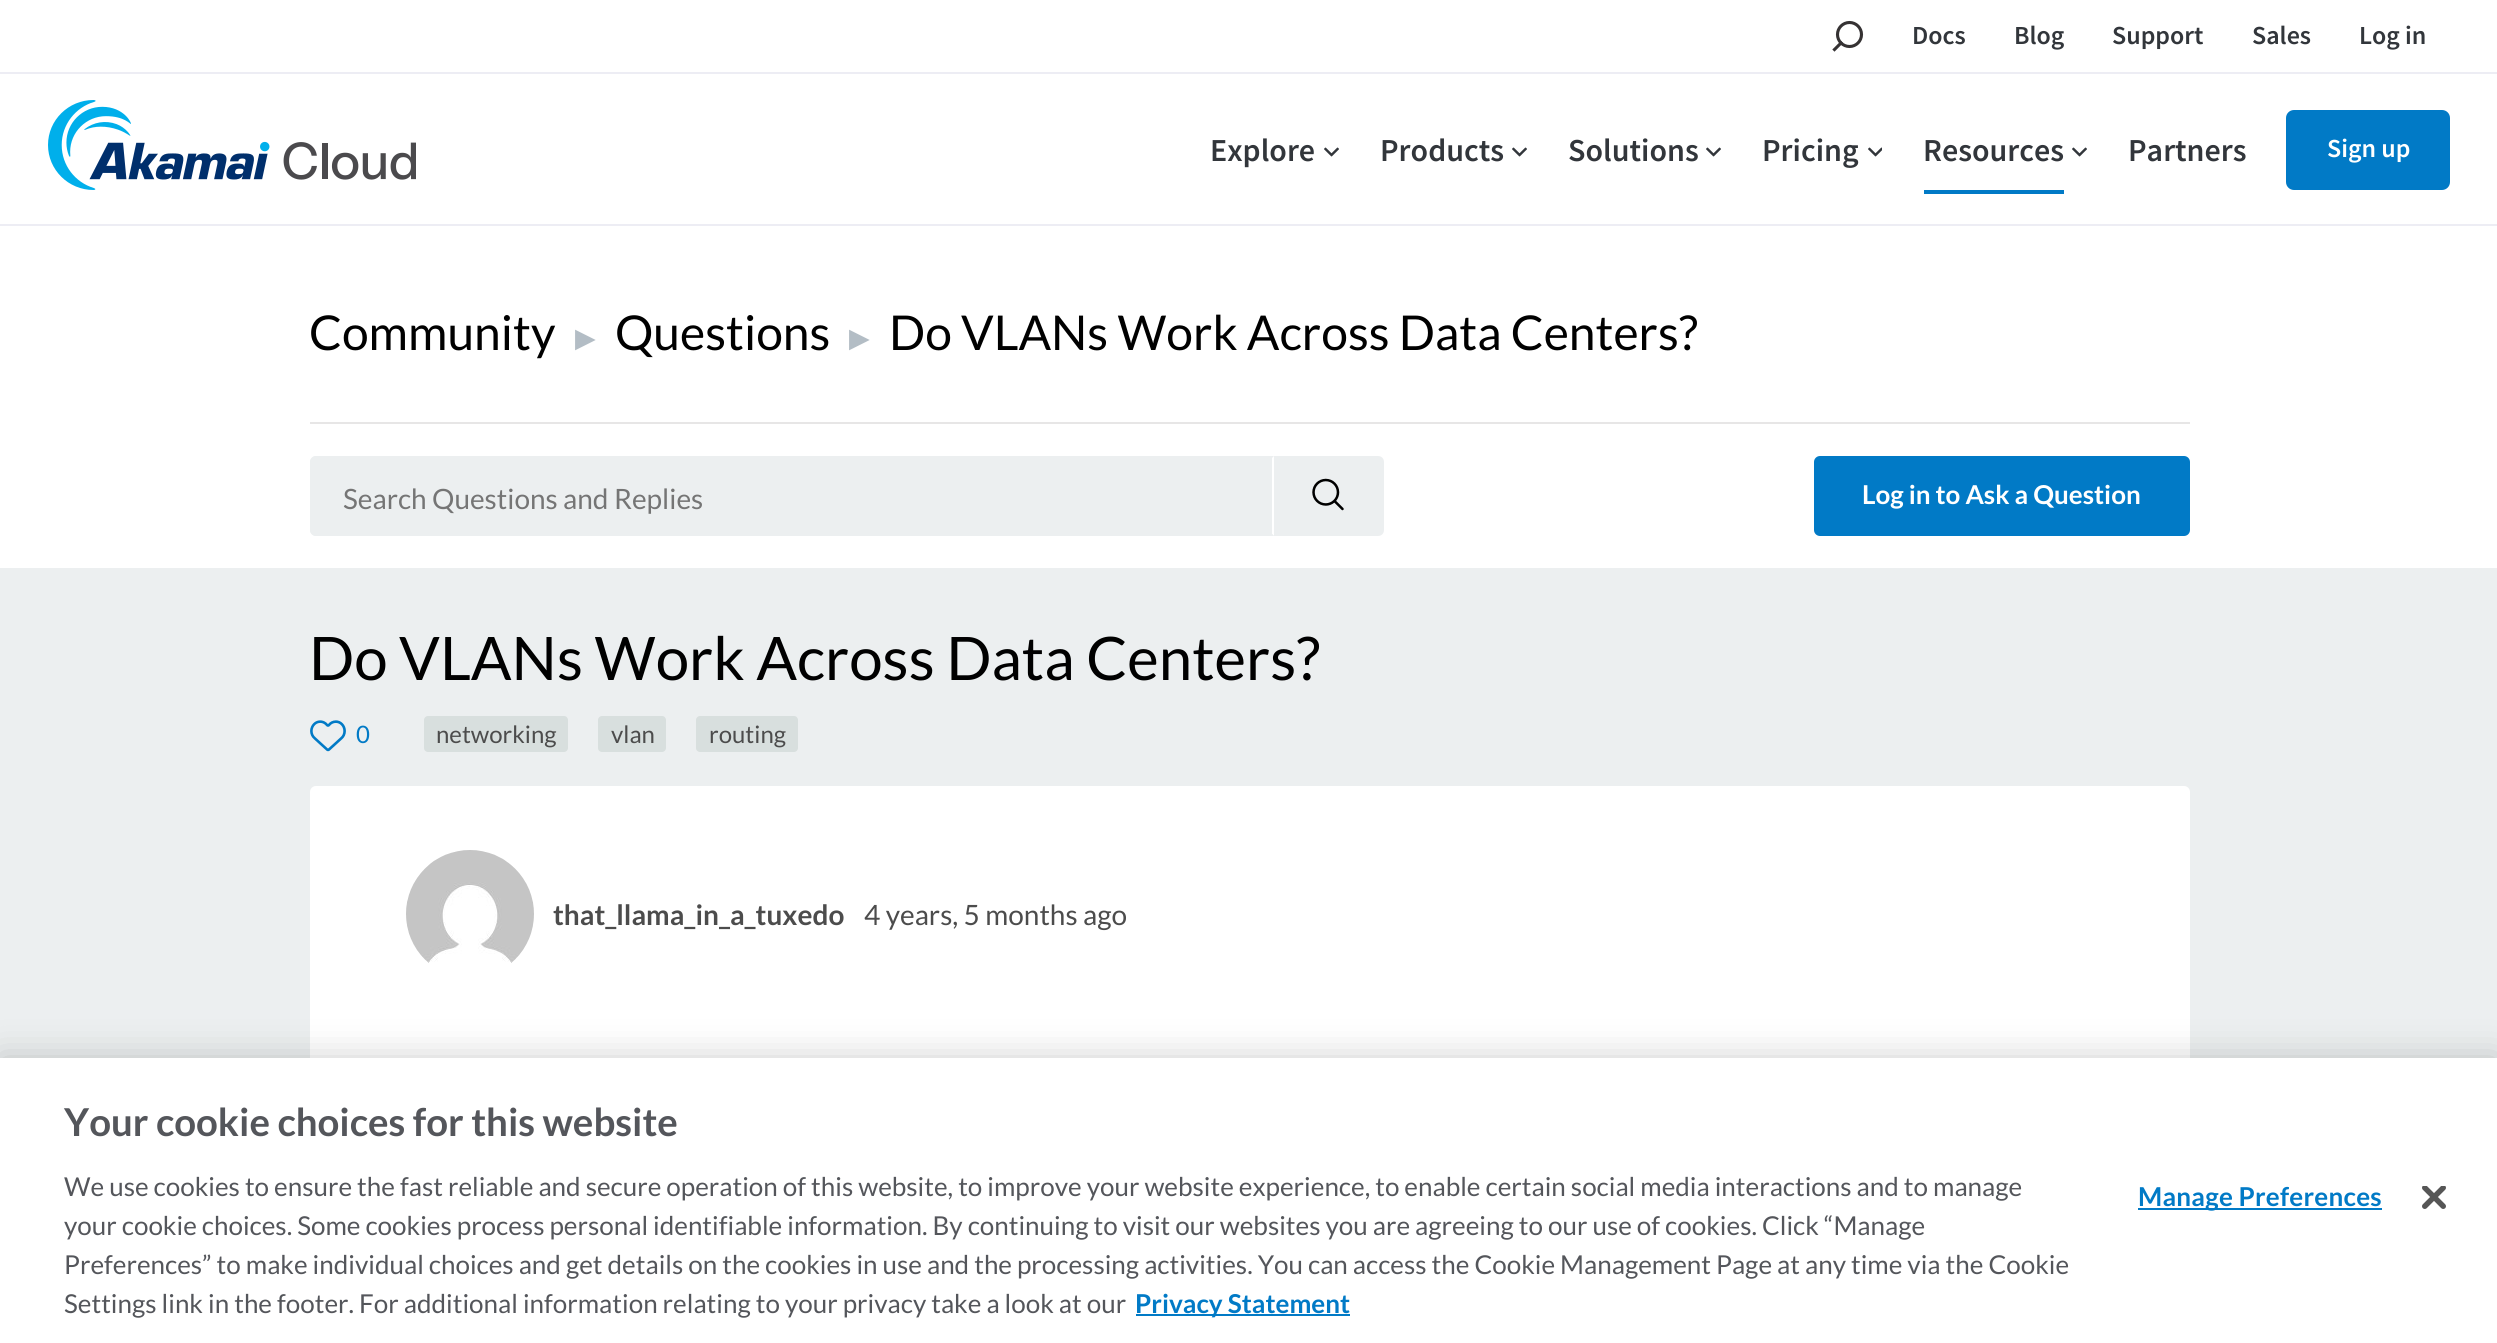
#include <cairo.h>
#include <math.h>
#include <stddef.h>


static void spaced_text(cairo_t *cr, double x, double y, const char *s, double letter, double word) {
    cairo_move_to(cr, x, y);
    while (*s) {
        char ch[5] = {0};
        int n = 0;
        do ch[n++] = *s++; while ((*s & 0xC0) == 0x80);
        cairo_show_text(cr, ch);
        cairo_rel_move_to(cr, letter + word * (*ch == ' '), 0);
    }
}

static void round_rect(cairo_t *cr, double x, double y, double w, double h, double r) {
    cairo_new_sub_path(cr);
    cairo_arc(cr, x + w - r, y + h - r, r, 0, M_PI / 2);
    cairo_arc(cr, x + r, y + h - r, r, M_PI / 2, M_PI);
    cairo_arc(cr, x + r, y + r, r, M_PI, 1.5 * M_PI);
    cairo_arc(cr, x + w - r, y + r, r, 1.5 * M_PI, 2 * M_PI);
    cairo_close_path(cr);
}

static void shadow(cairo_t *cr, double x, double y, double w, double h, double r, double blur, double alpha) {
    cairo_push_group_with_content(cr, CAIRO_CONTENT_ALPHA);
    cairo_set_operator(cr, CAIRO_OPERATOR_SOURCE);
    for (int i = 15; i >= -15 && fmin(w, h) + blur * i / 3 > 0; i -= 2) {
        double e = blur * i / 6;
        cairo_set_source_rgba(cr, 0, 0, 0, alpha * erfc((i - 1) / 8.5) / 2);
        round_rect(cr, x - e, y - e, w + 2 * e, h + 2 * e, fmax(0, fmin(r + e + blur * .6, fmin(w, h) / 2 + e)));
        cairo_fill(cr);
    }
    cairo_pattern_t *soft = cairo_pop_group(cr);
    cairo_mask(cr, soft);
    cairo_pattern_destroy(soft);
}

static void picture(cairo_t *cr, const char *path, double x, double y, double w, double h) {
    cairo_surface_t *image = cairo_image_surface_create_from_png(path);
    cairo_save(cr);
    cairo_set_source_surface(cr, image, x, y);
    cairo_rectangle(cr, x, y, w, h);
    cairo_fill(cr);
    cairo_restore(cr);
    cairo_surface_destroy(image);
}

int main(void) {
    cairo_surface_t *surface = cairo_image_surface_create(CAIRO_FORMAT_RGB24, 2497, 1343);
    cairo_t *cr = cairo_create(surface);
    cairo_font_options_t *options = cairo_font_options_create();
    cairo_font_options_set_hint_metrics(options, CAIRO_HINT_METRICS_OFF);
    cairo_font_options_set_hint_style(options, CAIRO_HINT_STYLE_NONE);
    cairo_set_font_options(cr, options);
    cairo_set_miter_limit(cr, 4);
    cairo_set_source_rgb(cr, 1, 1, 1);
    cairo_paint(cr);
    cairo_set_source_rgb(cr, 0.929, 0.929, 0.957);
    cairo_rectangle(cr, 0, 72, 2497, 2);
    cairo_fill(cr);
    cairo_arc(cr, 1849.5, 34.5, 12, 0, 2 * M_PI);
    cairo_set_source_rgb(cr, 0.208, 0.196, 0.2);
    cairo_set_line_width(cr, 3.1);
    cairo_stroke(cr);
    cairo_new_path(cr);
    cairo_move_to(cr, 1841, 43);
    cairo_line_to(cr, 1834.5, 49.5);
    cairo_set_line_cap(cr, CAIRO_LINE_CAP_SQUARE);
    cairo_stroke(cr);
    cairo_select_font_face(cr, "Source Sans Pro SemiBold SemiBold", CAIRO_FONT_SLANT_NORMAL, CAIRO_FONT_WEIGHT_NORMAL);
    cairo_set_font_size(cr, 26);
    cairo_set_source_rgb(cr, 0.196, 0.212, 0.231);
    cairo_move_to(cr, 1912, 44);
    cairo_show_text(cr, "Docs");
    cairo_move_to(cr, 2014, 44);
    cairo_show_text(cr, "Blog");
    cairo_move_to(cr, 2112, 44);
    cairo_show_text(cr, "Support");
    cairo_move_to(cr, 2252, 44);
    cairo_show_text(cr, "Sales");
    cairo_move_to(cr, 2359, 44);
    cairo_show_text(cr, "Log in");
    cairo_set_source_rgb(cr, 0.929, 0.929, 0.957);
    cairo_rectangle(cr, 0, 224, 2497, 2);
    cairo_fill(cr);
    picture(cr, "img1.png", 48, 100, 368, 90);
    cairo_set_font_size(cr, 32);
    cairo_set_source_rgb(cr, 0.196, 0.212, 0.231);
    cairo_move_to(cr, 1210, 161);
    cairo_show_text(cr, "Explore");
    picture(cr, "img2.png", 1324, 147, 15, 10);
    cairo_move_to(cr, 1380, 161);
    cairo_show_text(cr, "Products");
    picture(cr, "img2.png", 1512, 147, 15, 10);
    cairo_move_to(cr, 1568, 161);
    cairo_show_text(cr, "Solutions");
    picture(cr, "img2.png", 1706, 147, 15, 10);
    cairo_move_to(cr, 1762, 161);
    cairo_show_text(cr, "Pricing");
    picture(cr, "img3.png", 1868, 147, 14, 10);
    cairo_set_source_rgb(cr, 0.004, 0.478, 0.776);
    cairo_rectangle(cr, 1924, 190, 140, 4);
    cairo_fill(cr);
    cairo_set_source_rgb(cr, 0.196, 0.212, 0.231);
    cairo_move_to(cr, 1923, 161);
    cairo_show_text(cr, "Resources");
    picture(cr, "img2.png", 2072, 147, 15, 10);
    cairo_move_to(cr, 2128, 161);
    cairo_show_text(cr, "Partners");
    cairo_set_source_rgb(cr, 0.004, 0.478, 0.776);
    round_rect(cr, 2286, 110, 164, 80, 8);
    cairo_fill(cr);
    cairo_set_font_size(cr, 26);
    cairo_set_source_rgb(cr, 1, 1, 1);
    cairo_move_to(cr, 2327, 157);
    cairo_show_text(cr, "Sign up");
    cairo_set_source_rgb(cr, 0.906, 0.902, 0.902);
    cairo_rectangle(cr, 310, 422, 1880, 2);
    cairo_fill(cr);
    cairo_select_font_face(cr, "Lato", CAIRO_FONT_SLANT_NORMAL, CAIRO_FONT_WEIGHT_NORMAL);
    cairo_set_font_size(cr, 48);
    cairo_set_source_rgb(cr, 0, 0, 0);
    cairo_move_to(cr, 309, 350);
    cairo_show_text(cr, "Community");
    cairo_select_font_face(cr, "DejaVu Sans", CAIRO_FONT_SLANT_NORMAL, CAIRO_FONT_WEIGHT_NORMAL);
    cairo_set_font_size(cr, 27);
    cairo_set_source_rgb(cr, 0.702, 0.741, 0.773);
    cairo_move_to(cr, 575, 347);
    cairo_show_text(cr, "▶");
    cairo_select_font_face(cr, "Lato", CAIRO_FONT_SLANT_NORMAL, CAIRO_FONT_WEIGHT_NORMAL);
    cairo_set_font_size(cr, 48);
    cairo_set_source_rgb(cr, 0, 0, 0);
    cairo_move_to(cr, 615, 350);
    cairo_show_text(cr, "Questions");
    cairo_select_font_face(cr, "DejaVu Sans", CAIRO_FONT_SLANT_NORMAL, CAIRO_FONT_WEIGHT_NORMAL);
    cairo_set_font_size(cr, 27);
    cairo_set_source_rgb(cr, 0.702, 0.741, 0.773);
    cairo_move_to(cr, 849, 347);
    cairo_show_text(cr, "▶");
    cairo_select_font_face(cr, "Lato", CAIRO_FONT_SLANT_NORMAL, CAIRO_FONT_WEIGHT_NORMAL);
    cairo_set_font_size(cr, 48);
    cairo_set_source_rgb(cr, 0, 0, 0);
    cairo_move_to(cr, 889, 350);
    cairo_show_text(cr, "Do VLANs Work Across Data Centers?");
    cairo_set_source_rgb(cr, 0.922, 0.937, 0.941);
    cairo_new_path(cr);
    cairo_move_to(cr, 316, 456);
    cairo_line_to(cr, 1274, 456);
    cairo_line_to(cr, 1274, 536);
    cairo_line_to(cr, 316, 536);
    cairo_curve_to(cr, 312.5, 536, 310, 533.5, 310, 530);
    cairo_line_to(cr, 310, 462);
    cairo_curve_to(cr, 310, 458.5, 312.5, 456, 316, 456);
    cairo_close_path(cr);
    cairo_fill(cr);
    cairo_new_path(cr);
    cairo_move_to(cr, 316, 456);
    cairo_curve_to(cr, 314, 456, 313, 457, 312, 458);
    cairo_line_to(cr, 313, 459);
    cairo_line_to(cr, 316, 458);
    cairo_line_to(cr, 1272, 458);
    cairo_line_to(cr, 1274, 456);
    cairo_close_path(cr);
    cairo_fill(cr);
    cairo_set_source_rgb(cr, 1, 1, 1);
    cairo_new_path(cr);
    cairo_move_to(cr, 1274, 456);
    cairo_line_to(cr, 1272, 458);
    cairo_line_to(cr, 1272, 534);
    cairo_line_to(cr, 1274, 536);
    cairo_close_path(cr);
    cairo_fill(cr);
    cairo_set_source_rgb(cr, 0.922, 0.937, 0.941);
    cairo_new_path(cr);
    cairo_move_to(cr, 1274, 536);
    cairo_line_to(cr, 1272, 534);
    cairo_line_to(cr, 316, 534);
    cairo_line_to(cr, 313, 533);
    cairo_line_to(cr, 312, 534);
    cairo_curve_to(cr, 313, 535, 314, 536, 316, 536);
    cairo_close_path(cr);
    cairo_fill(cr);
    cairo_new_path(cr);
    cairo_move_to(cr, 310, 462);
    cairo_line_to(cr, 310, 530);
    cairo_curve_to(cr, 310, 532, 311, 533, 312, 534);
    cairo_line_to(cr, 313, 533);
    cairo_line_to(cr, 312, 530);
    cairo_line_to(cr, 312, 462);
    cairo_line_to(cr, 313, 459);
    cairo_line_to(cr, 312, 458);
    cairo_curve_to(cr, 311, 459, 310, 460, 310, 462);
    cairo_close_path(cr);
    cairo_fill(cr);
    cairo_set_font_size(cr, 28);
    cairo_set_source_rgb(cr, 0.459, 0.459, 0.459);
    cairo_move_to(cr, 343, 509);
    cairo_show_text(cr, "Search Questions and Replies");
    cairo_set_source_rgb(cr, 0.922, 0.937, 0.941);
    cairo_new_path(cr);
    cairo_move_to(cr, 1274, 456);
    cairo_line_to(cr, 1378, 456);
    cairo_curve_to(cr, 1381.5, 456, 1384, 458.5, 1384, 462);
    cairo_line_to(cr, 1384, 530);
    cairo_curve_to(cr, 1384, 533.5, 1381.5, 536, 1378, 536);
    cairo_line_to(cr, 1274, 536);
    cairo_close_path(cr);
    cairo_fill(cr);
    picture(cr, "img4.png", 1312, 478, 32, 33);
    cairo_set_source_rgb(cr, 0.004, 0.478, 0.776);
    round_rect(cr, 1814, 456, 376, 80, 6);
    cairo_fill(cr);
    cairo_select_font_face(cr, "Lato", CAIRO_FONT_SLANT_NORMAL, CAIRO_FONT_WEIGHT_BOLD);
    cairo_set_font_size(cr, 26);
    cairo_set_source_rgb(cr, 1, 1, 1);
    cairo_move_to(cr, 1862, 504);
    cairo_show_text(cr, "Log in to Ask a Question");
    cairo_set_source_rgb(cr, 0.922, 0.937, 0.941);
    cairo_rectangle(cr, 0, 568, 2497, 490);
    cairo_fill(cr);
    cairo_select_font_face(cr, "Lato", CAIRO_FONT_SLANT_NORMAL, CAIRO_FONT_WEIGHT_NORMAL);
    cairo_set_font_size(cr, 60);
    cairo_set_source_rgb(cr, 0, 0, 0);
    cairo_move_to(cr, 309, 680);
    cairo_show_text(cr, "Do VLANs Work Across Data Centers?");
    picture(cr, "img5.png", 310, 720, 36, 32);
    cairo_set_font_size(cr, 24);
    cairo_set_source_rgb(cr, 0.004, 0.478, 0.776);
    cairo_move_to(cr, 356, 743);
    cairo_show_text(cr, "0");
    cairo_set_source_rgb(cr, 0.847, 0.875, 0.871);
    round_rect(cr, 424, 716, 144, 36, 4);
    cairo_fill(cr);
    cairo_set_source_rgb(cr, 0.298, 0.298, 0.298);
    cairo_move_to(cr, 436, 743);
    cairo_show_text(cr, "networking");
    cairo_set_source_rgb(cr, 0.847, 0.875, 0.871);
    round_rect(cr, 598, 716, 68, 36, 4);
    cairo_fill(cr);
    cairo_set_source_rgb(cr, 0.298, 0.298, 0.298);
    cairo_move_to(cr, 611, 743);
    cairo_show_text(cr, "vlan");
    cairo_set_source_rgb(cr, 0.847, 0.875, 0.871);
    round_rect(cr, 696, 716, 102, 36, 4);
    cairo_fill(cr);
    cairo_set_source_rgb(cr, 0.298, 0.298, 0.298);
    cairo_move_to(cr, 709, 743);
    cairo_show_text(cr, "routing");
    cairo_set_source_rgb(cr, 1, 1, 1);
    round_rect(cr, 310, 786, 1880, 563, 6);
    cairo_fill(cr);
    picture(cr, "img6.png", 406, 850, 128, 113);
    cairo_select_font_face(cr, "Lato", CAIRO_FONT_SLANT_NORMAL, CAIRO_FONT_WEIGHT_BOLD);
    cairo_set_font_size(cr, 28);
    cairo_set_source_rgb(cr, 0.298, 0.298, 0.298);
    cairo_move_to(cr, 553, 925);
    cairo_show_text(cr, "that_llama_in_a_tuxedo");
    cairo_select_font_face(cr, "Lato", CAIRO_FONT_SLANT_NORMAL, CAIRO_FONT_WEIGHT_NORMAL);
    cairo_move_to(cr, 864, 925);
    cairo_show_text(cr, "4 years, 5 months ago");
    cairo_set_source_rgb(cr, 0, 0, 0);
    shadow(cr, 0, 1058, 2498, 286, 0, 18, 0.2);
    cairo_set_source_rgb(cr, 1, 1, 1);
    cairo_rectangle(cr, 0, 1058, 2497, 285);
    cairo_fill(cr);
    cairo_select_font_face(cr, "Lato", CAIRO_FONT_SLANT_NORMAL, CAIRO_FONT_WEIGHT_BOLD);
    cairo_set_font_size(cr, 38.4);
    cairo_set_source_rgb(cr, 0.329, 0.337, 0.357);
    cairo_move_to(cr, 64, 1136);
    cairo_show_text(cr, "Your cookie choices for this website");
    cairo_select_font_face(cr, "Lato", CAIRO_FONT_SLANT_NORMAL, CAIRO_FONT_WEIGHT_NORMAL);
    cairo_set_font_size(cr, 26.02);
    cairo_move_to(cr, 64, 1196);
    cairo_show_text(cr, "We use cookies to ensure the fast reliable and secure operation of this website, to improve your website experience, to enable certain social media interactions and to manage");
    cairo_move_to(cr, 64, 1235);
    cairo_show_text(cr, "your cookie choices. Some cookies process personal identifiable information. By continuing to visit our websites you are agreeing to our use of cookies. Click “Manage");
    cairo_move_to(cr, 64, 1274);
    cairo_show_text(cr, "Preferences” to make individual choices and get details on the cookies in use and the processing activities. You can access the Cookie Management Page at any time via the Cookie");
    cairo_move_to(cr, 64, 1313);
    cairo_show_text(cr, "Settings link in the footer. For additional information relating to your privacy take a look at our");
    cairo_set_source_rgb(cr, 0.004, 0.478, 0.776);
    cairo_rectangle(cr, 1136, 1314, 214, 2);
    cairo_fill(cr);
    cairo_select_font_face(cr, "Lato", CAIRO_FONT_SLANT_NORMAL, CAIRO_FONT_WEIGHT_BOLD);
    cairo_move_to(cr, 1135, 1313);
    cairo_show_text(cr, "Privacy Statement");
    cairo_rectangle(cr, 2138, 1208, 244, 2);
    cairo_fill(cr);
    spaced_text(cr, 2138, 1206, "Manage Preferences", 0.25, 0);
    picture(cr, "img7.png", 2422, 1186, 24, 23);
    cairo_surface_write_to_png(surface, "page.png");
    cairo_font_options_destroy(options);
    cairo_destroy(cr);
    cairo_surface_destroy(surface);
    return 0;
}
